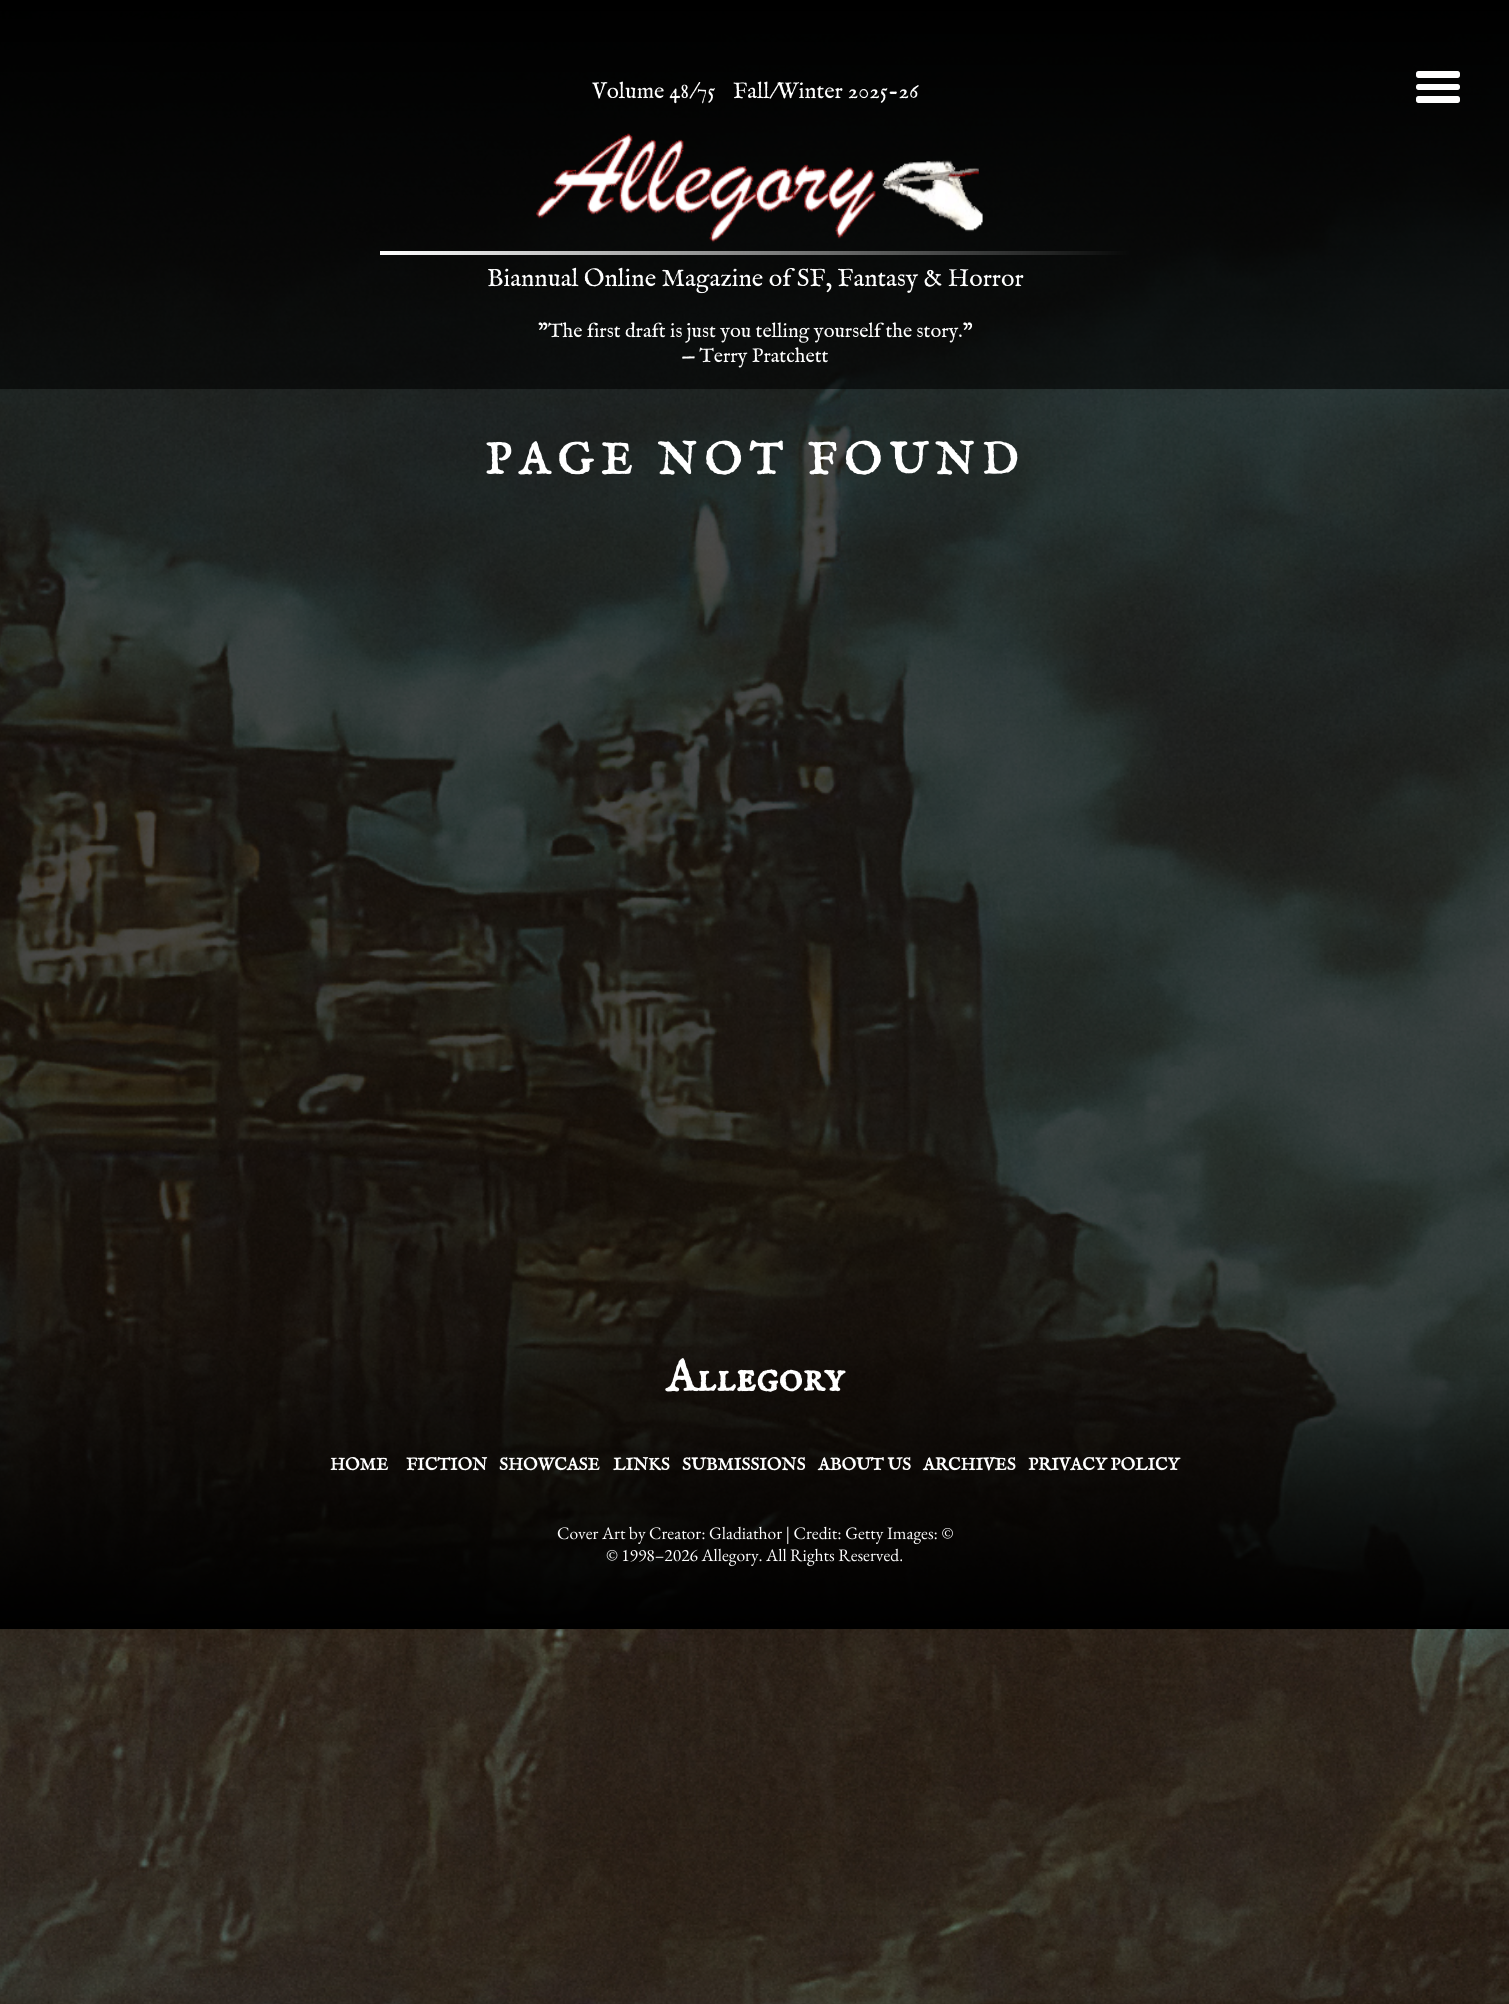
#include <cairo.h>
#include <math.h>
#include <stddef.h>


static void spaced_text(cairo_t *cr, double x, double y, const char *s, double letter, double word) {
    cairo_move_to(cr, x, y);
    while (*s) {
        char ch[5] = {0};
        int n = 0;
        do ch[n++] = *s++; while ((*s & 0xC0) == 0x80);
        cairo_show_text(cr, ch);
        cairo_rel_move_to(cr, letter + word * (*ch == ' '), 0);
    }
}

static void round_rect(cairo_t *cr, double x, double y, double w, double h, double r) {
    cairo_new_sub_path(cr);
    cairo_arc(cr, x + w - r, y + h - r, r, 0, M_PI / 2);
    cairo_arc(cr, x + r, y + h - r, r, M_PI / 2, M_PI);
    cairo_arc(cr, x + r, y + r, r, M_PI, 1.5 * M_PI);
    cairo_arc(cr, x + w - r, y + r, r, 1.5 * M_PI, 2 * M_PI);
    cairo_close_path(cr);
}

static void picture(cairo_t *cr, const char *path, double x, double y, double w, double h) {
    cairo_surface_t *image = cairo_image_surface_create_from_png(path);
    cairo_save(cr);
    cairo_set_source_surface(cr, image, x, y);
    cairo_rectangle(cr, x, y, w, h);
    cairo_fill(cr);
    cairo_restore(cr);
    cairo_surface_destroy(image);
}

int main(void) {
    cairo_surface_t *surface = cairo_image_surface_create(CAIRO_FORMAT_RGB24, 1509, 2004);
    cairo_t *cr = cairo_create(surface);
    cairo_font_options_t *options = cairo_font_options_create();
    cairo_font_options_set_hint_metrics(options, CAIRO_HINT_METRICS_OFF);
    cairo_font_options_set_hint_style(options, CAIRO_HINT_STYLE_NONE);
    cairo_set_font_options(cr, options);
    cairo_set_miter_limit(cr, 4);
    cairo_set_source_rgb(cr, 1, 1, 1);
    cairo_paint(cr);
    picture(cr, "img1.png", 0, 0, 1509, 2004);
    cairo_select_font_face(cr, "IM FELL English", CAIRO_FONT_SLANT_NORMAL, CAIRO_FONT_WEIGHT_NORMAL);
    cairo_set_font_size(cr, 22.5);
    cairo_set_source_rgb(cr, 1, 1, 1);
    cairo_move_to(cr, 592, 98);
    cairo_show_text(cr, "Volume 48/75");
    cairo_move_to(cr, 733, 98);
    cairo_show_text(cr, "Fall/Winter 2025-26");
    picture(cr, "img2.png", 536, 133, 447, 110);
    cairo_set_font_size(cr, 25);
    cairo_move_to(cr, 487, 286);
    cairo_show_text(cr, "Biannual Online Magazine of SF, Fantasy & Horror");
    cairo_set_font_size(cr, 20);
    cairo_move_to(cr, 538, 337);
    cairo_show_text(cr, "\"The first draft is just you telling yourself the story.\"");
    cairo_move_to(cr, 682, 362);
    cairo_show_text(cr, "— Terry Pratchett");
    round_rect(cr, 1416, 84, 44, 6, 2.5);
    cairo_fill(cr);
    round_rect(cr, 1416, 71, 44, 7, 2.5);
    cairo_fill(cr);
    round_rect(cr, 1416, 96, 44, 7, 2.5);
    cairo_fill(cr);
    cairo_set_source_rgba(cr, 0, 0, 0, 0.5);
    cairo_rectangle(cr, 0, 389, 1509, 942);
    cairo_fill(cr);
    cairo_select_font_face(cr, "IM FELL English SC", CAIRO_FONT_SLANT_NORMAL, CAIRO_FONT_WEIGHT_BOLD);
    cairo_set_font_size(cr, 45);
    cairo_set_source_rgb(cr, 1, 1, 1);
    spaced_text(cr, 485, 474, "PAGE NOT FOUND", 7.9, 0);
    cairo_move_to(cr, 666, 1391);
    cairo_show_text(cr, "Allegory");
    cairo_select_font_face(cr, "IM FELL English", CAIRO_FONT_SLANT_NORMAL, CAIRO_FONT_WEIGHT_BOLD);
    cairo_set_font_size(cr, 17.5);
    cairo_move_to(cr, 330, 1470);
    cairo_show_text(cr, "HOME");
    cairo_move_to(cr, 406, 1470);
    cairo_show_text(cr, "FICTION");
    cairo_move_to(cr, 499, 1470);
    cairo_show_text(cr, "SHOWCASE");
    cairo_move_to(cr, 613, 1470);
    cairo_show_text(cr, "LINKS");
    cairo_move_to(cr, 682, 1470);
    cairo_show_text(cr, "SUBMISSIONS");
    cairo_move_to(cr, 818, 1470);
    cairo_show_text(cr, "ABOUT US");
    cairo_move_to(cr, 923, 1470);
    cairo_show_text(cr, "ARCHIVES");
    cairo_move_to(cr, 1028, 1470);
    cairo_show_text(cr, "PRIVACY POLICY");
    cairo_select_font_face(cr, "EB Garamond", CAIRO_FONT_SLANT_NORMAL, CAIRO_FONT_WEIGHT_NORMAL);
    cairo_move_to(cr, 557, 1539);
    cairo_show_text(cr, "Cover Art by Creator: Gladiathor | Credit: Getty Images: ©");
    cairo_move_to(cr, 606, 1561);
    cairo_show_text(cr, "© 1998–2026 Allegory. All Rights Reserved.");
    cairo_surface_write_to_png(surface, "page.png");
    cairo_font_options_destroy(options);
    cairo_destroy(cr);
    cairo_surface_destroy(surface);
    return 0;
}
